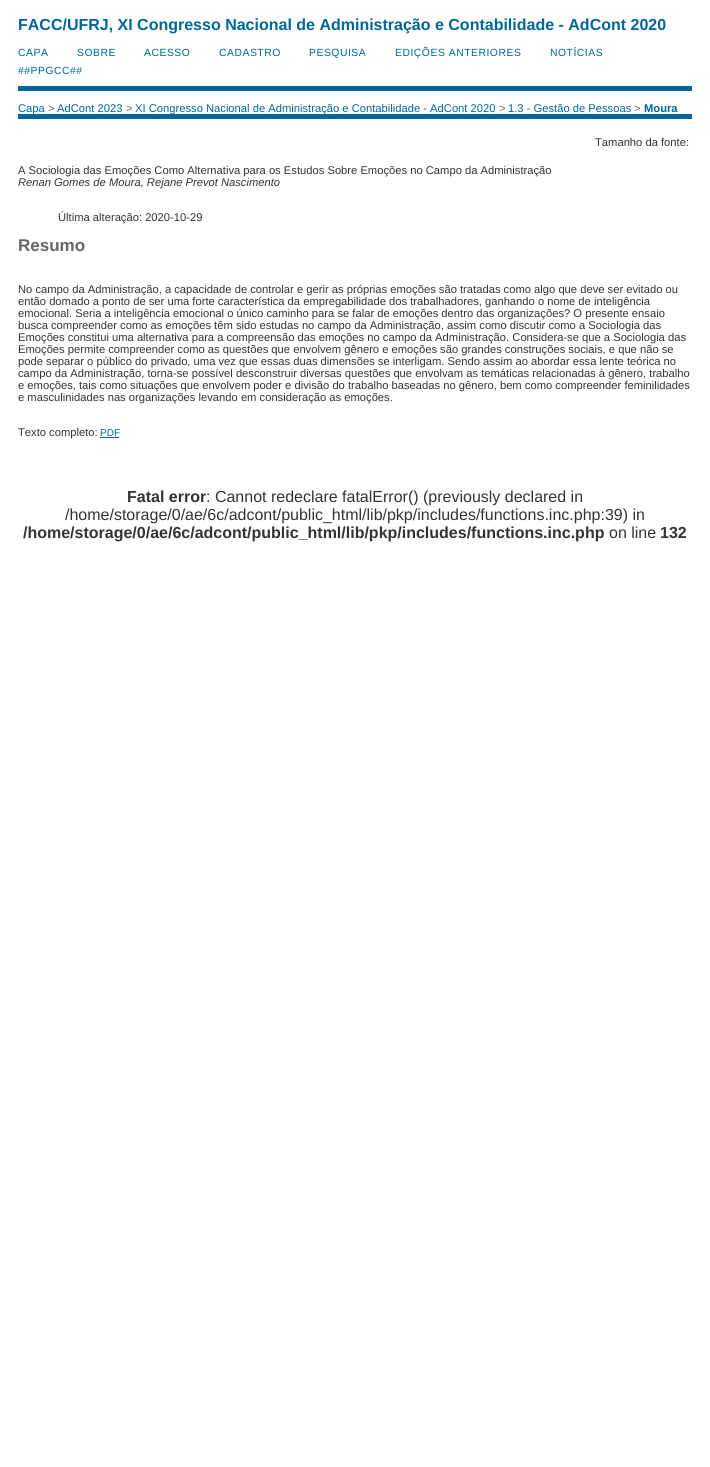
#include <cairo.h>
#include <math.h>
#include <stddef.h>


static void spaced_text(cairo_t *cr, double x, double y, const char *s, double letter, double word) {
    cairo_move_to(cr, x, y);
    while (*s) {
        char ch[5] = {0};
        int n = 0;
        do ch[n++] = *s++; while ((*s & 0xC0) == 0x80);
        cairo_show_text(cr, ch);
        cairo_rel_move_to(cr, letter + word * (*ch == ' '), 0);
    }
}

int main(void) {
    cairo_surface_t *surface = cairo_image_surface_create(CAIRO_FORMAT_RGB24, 710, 1467);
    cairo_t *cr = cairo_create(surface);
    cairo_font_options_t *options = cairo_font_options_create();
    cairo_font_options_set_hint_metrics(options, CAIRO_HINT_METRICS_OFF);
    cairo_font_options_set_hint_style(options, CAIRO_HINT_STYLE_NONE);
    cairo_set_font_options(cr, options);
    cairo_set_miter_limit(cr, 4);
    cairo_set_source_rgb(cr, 1, 1, 1);
    cairo_paint(cr);
    cairo_select_font_face(cr, "Liberation Sans", CAIRO_FONT_SLANT_NORMAL, CAIRO_FONT_WEIGHT_BOLD);
    cairo_set_font_size(cr, 16);
    cairo_set_source_rgb(cr, 0, 0.4, 0.6);
    cairo_move_to(cr, 18, 30);
    cairo_show_text(cr, "FACC/UFRJ, XI Congresso Nacional de Administração e Contabilidade - AdCont 2020");
    cairo_rectangle(cr, 18, 86, 674, 5);
    cairo_fill(cr);
    cairo_select_font_face(cr, "Liberation Sans", CAIRO_FONT_SLANT_NORMAL, CAIRO_FONT_WEIGHT_NORMAL);
    cairo_set_font_size(cr, 10.4);
    spaced_text(cr, 18, 56, "CAPA", 0.5, 0);
    spaced_text(cr, 77, 56, "SOBRE", 0.5, 0);
    spaced_text(cr, 144, 56, "ACESSO", 0.5, 0);
    spaced_text(cr, 219, 56, "CADASTRO", 0.5, 0);
    spaced_text(cr, 309, 56, "PESQUISA", 0.5, 0);
    spaced_text(cr, 395, 56, "EDIÇÕES ANTERIORES", 0.5, 0);
    spaced_text(cr, 550, 56, "NOTÍCIAS", 0.5, 0);
    spaced_text(cr, 18, 74, "##PPGCC##", 0.5, 0);
    cairo_rectangle(cr, 18, 114, 674, 5);
    cairo_fill(cr);
    cairo_set_font_size(cr, 11.2);
    cairo_move_to(cr, 18, 112);
    cairo_show_text(cr, "Capa");
    cairo_set_source_rgb(cr, 0.4, 0.4, 0.4);
    cairo_move_to(cr, 48, 112);
    cairo_show_text(cr, ">");
    cairo_set_source_rgb(cr, 0, 0.4, 0.6);
    cairo_move_to(cr, 57, 112);
    cairo_show_text(cr, "AdCont 2023");
    cairo_set_source_rgb(cr, 0.4, 0.4, 0.4);
    cairo_move_to(cr, 126, 112);
    cairo_show_text(cr, ">");
    cairo_set_source_rgb(cr, 0, 0.4, 0.6);
    cairo_move_to(cr, 135, 112);
    cairo_show_text(cr, "XI Congresso Nacional de Administração e Contabilidade - AdCont 2020");
    cairo_set_source_rgb(cr, 0.4, 0.4, 0.4);
    cairo_move_to(cr, 499, 112);
    cairo_show_text(cr, ">");
    cairo_set_source_rgb(cr, 0, 0.4, 0.6);
    cairo_move_to(cr, 508, 112);
    cairo_show_text(cr, "1.3 - Gestão de Pessoas");
    cairo_set_source_rgb(cr, 0.4, 0.4, 0.4);
    cairo_move_to(cr, 634, 112);
    cairo_show_text(cr, ">");
    cairo_select_font_face(cr, "Liberation Sans", CAIRO_FONT_SLANT_NORMAL, CAIRO_FONT_WEIGHT_BOLD);
    cairo_set_source_rgb(cr, 0, 0.4, 0.6);
    cairo_move_to(cr, 644, 112);
    cairo_show_text(cr, "Moura");
    cairo_select_font_face(cr, "Liberation Sans", CAIRO_FONT_SLANT_NORMAL, CAIRO_FONT_WEIGHT_NORMAL);
    cairo_set_source_rgb(cr, 0.2, 0.2, 0.2);
    cairo_move_to(cr, 595, 146);
    cairo_show_text(cr, "Tamanho da fonte:");
    cairo_move_to(cr, 18, 174);
    cairo_show_text(cr, "A Sociologia das Emoções Como Alternativa para os Estudos Sobre Emoções no Campo da Administração");
    cairo_select_font_face(cr, "Liberation Sans", CAIRO_FONT_SLANT_ITALIC, CAIRO_FONT_WEIGHT_NORMAL);
    cairo_move_to(cr, 18, 186);
    cairo_show_text(cr, "Renan Gomes de Moura, Rejane Prevot Nascimento");
    cairo_select_font_face(cr, "Liberation Sans", CAIRO_FONT_SLANT_NORMAL, CAIRO_FONT_WEIGHT_NORMAL);
    cairo_move_to(cr, 58, 221);
    cairo_show_text(cr, "Última alteração: 2020-10-29");
    cairo_select_font_face(cr, "Liberation Sans", CAIRO_FONT_SLANT_NORMAL, CAIRO_FONT_WEIGHT_BOLD);
    cairo_set_font_size(cr, 17);
    cairo_set_source_rgb(cr, 0.4, 0.4, 0.4);
    cairo_move_to(cr, 18, 251);
    cairo_show_text(cr, "Resumo");
    cairo_select_font_face(cr, "Liberation Sans", CAIRO_FONT_SLANT_NORMAL, CAIRO_FONT_WEIGHT_NORMAL);
    cairo_set_font_size(cr, 11.2);
    cairo_set_source_rgb(cr, 0.2, 0.2, 0.2);
    cairo_move_to(cr, 18, 293);
    cairo_show_text(cr, "No campo da Administração, a capacidade de controlar e gerir as próprias emoções são tratadas como algo que deve ser evitado ou");
    cairo_move_to(cr, 18, 305);
    cairo_show_text(cr, "então domado a ponto de ser uma forte característica da empregabilidade dos trabalhadores, ganhando o nome de inteligência");
    cairo_move_to(cr, 18, 317);
    cairo_show_text(cr, "emocional. Seria a inteligência emocional o único caminho para se falar de emoções dentro das organizações? O presente ensaio");
    cairo_move_to(cr, 18, 329);
    cairo_show_text(cr, "busca compreender como as emoções têm sido estudas no campo da Administração, assim como discutir como a Sociologia das");
    cairo_move_to(cr, 18, 341);
    cairo_show_text(cr, "Emoções constitui uma alternativa para a compreensão das emoções no campo da Administração. Considera-se que a Sociologia das");
    cairo_move_to(cr, 18, 353);
    cairo_show_text(cr, "Emoções permite compreender como as questões que envolvem gênero e emoções são grandes construções sociais, e que não se");
    cairo_move_to(cr, 18, 365);
    cairo_show_text(cr, "pode separar o público do privado, uma vez que essas duas dimensões se interligam. Sendo assim ao abordar essa lente teórica no");
    cairo_move_to(cr, 18, 377);
    cairo_show_text(cr, "campo da Administração, torna-se possível desconstruir diversas questões que envolvam as temáticas relacionadas à gênero, trabalho");
    cairo_move_to(cr, 18, 389);
    cairo_show_text(cr, "e emoções, tais como situações que envolvem poder e divisão do trabalho baseadas no gênero, bem como compreender feminilidades");
    cairo_move_to(cr, 18, 401);
    cairo_show_text(cr, "e masculinidades nas organizações levando em consideração as emoções.");
    cairo_move_to(cr, 18, 436);
    cairo_show_text(cr, "Texto completo:");
    cairo_set_font_size(cr, 10);
    cairo_set_source_rgb(cr, 0, 0.4, 0.6);
    cairo_move_to(cr, 100, 436);
    cairo_show_text(cr, "PDF");
    cairo_rectangle(cr, 100, 437, 19, 1);
    cairo_fill(cr);
    cairo_select_font_face(cr, "Liberation Sans", CAIRO_FONT_SLANT_NORMAL, CAIRO_FONT_WEIGHT_BOLD);
    cairo_set_font_size(cr, 16);
    cairo_set_source_rgb(cr, 0.2, 0.2, 0.2);
    cairo_move_to(cr, 127, 502);
    cairo_show_text(cr, "Fatal error");
    cairo_select_font_face(cr, "Liberation Sans", CAIRO_FONT_SLANT_NORMAL, CAIRO_FONT_WEIGHT_NORMAL);
    cairo_move_to(cr, 206, 502);
    cairo_show_text(cr, ": Cannot redeclare fatalError() (previously declared in");
    cairo_move_to(cr, 65, 520);
    cairo_show_text(cr, "/home/storage/0/ae/6c/adcont/public_html/lib/pkp/includes/functions.inc.php:39) in");
    cairo_select_font_face(cr, "Liberation Sans", CAIRO_FONT_SLANT_NORMAL, CAIRO_FONT_WEIGHT_BOLD);
    cairo_move_to(cr, 23, 538);
    cairo_show_text(cr, "/home/storage/0/ae/6c/adcont/public_html/lib/pkp/includes/functions.inc.php");
    cairo_select_font_face(cr, "Liberation Sans", CAIRO_FONT_SLANT_NORMAL, CAIRO_FONT_WEIGHT_NORMAL);
    cairo_move_to(cr, 609, 538);
    cairo_show_text(cr, "on line");
    cairo_select_font_face(cr, "Liberation Sans", CAIRO_FONT_SLANT_NORMAL, CAIRO_FONT_WEIGHT_BOLD);
    cairo_move_to(cr, 660, 538);
    cairo_show_text(cr, "132");
    cairo_surface_write_to_png(surface, "page.png");
    cairo_font_options_destroy(options);
    cairo_destroy(cr);
    cairo_surface_destroy(surface);
    return 0;
}
